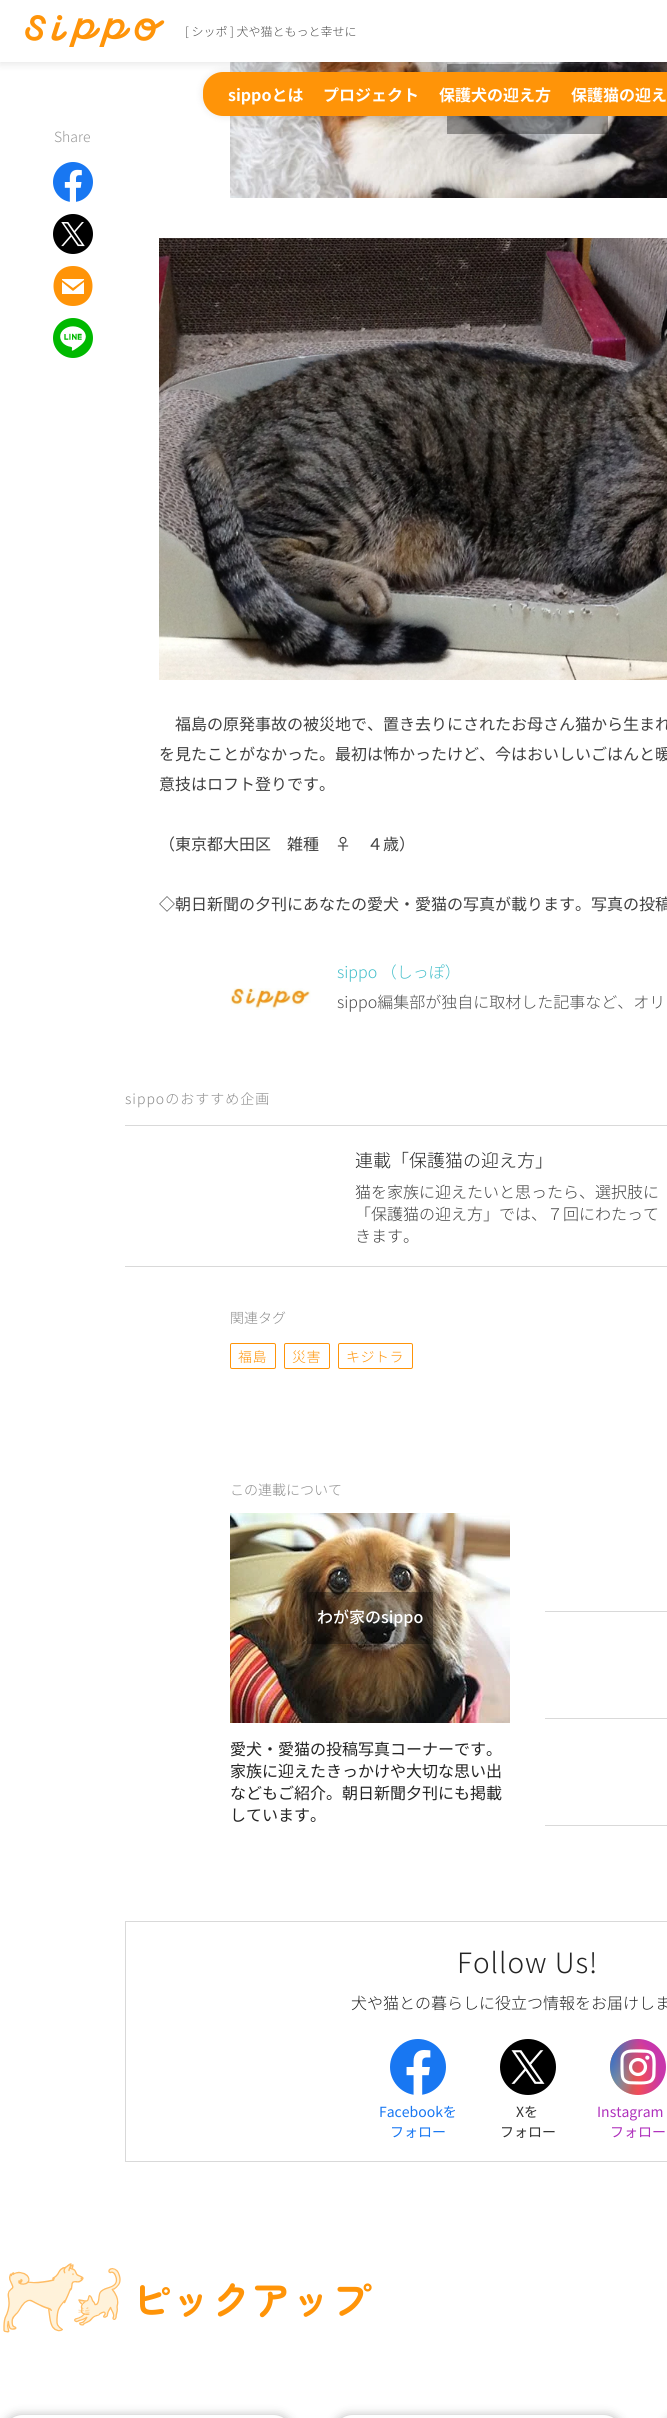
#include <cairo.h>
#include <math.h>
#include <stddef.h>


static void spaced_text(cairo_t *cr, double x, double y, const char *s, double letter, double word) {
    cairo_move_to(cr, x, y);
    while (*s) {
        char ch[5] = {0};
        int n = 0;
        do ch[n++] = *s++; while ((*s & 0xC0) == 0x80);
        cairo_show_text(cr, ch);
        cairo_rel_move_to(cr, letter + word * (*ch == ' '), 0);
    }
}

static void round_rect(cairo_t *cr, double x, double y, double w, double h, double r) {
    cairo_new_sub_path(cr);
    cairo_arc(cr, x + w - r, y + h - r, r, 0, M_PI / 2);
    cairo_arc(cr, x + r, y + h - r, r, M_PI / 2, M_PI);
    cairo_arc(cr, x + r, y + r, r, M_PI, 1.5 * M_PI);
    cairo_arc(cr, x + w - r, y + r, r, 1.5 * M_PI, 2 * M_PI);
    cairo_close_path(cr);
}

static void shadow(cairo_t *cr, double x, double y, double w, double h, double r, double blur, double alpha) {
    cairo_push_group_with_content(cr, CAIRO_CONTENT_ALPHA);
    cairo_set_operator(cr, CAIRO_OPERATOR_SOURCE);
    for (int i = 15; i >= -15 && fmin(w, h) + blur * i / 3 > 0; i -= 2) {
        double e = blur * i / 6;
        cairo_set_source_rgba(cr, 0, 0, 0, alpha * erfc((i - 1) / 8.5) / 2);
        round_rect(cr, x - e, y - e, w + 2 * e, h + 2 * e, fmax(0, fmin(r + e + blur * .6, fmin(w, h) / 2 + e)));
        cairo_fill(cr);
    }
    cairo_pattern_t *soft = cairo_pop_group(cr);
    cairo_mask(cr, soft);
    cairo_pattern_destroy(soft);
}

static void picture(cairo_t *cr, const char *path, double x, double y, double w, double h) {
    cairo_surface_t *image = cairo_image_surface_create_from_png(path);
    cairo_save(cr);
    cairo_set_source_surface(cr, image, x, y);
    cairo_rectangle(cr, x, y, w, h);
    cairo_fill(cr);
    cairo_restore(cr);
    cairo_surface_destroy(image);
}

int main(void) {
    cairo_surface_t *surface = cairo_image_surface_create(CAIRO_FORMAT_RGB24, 667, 2418);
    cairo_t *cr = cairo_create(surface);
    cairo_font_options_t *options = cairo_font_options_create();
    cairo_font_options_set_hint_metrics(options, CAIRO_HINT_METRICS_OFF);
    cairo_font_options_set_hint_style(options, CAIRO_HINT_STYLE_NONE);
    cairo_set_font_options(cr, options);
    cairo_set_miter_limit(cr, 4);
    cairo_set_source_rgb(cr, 1, 1, 1);
    cairo_paint(cr);
    picture(cr, "img5.png", 230, 62, 437, 136);
    cairo_set_source_rgba(cr, 0, 0, 0, 0.35);
    cairo_rectangle(cr, 447, 64, 161, 70);
    cairo_fill(cr);
    cairo_set_source_rgb(cr, 0, 0, 0);
    shadow(cr, 0, 2, 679, 62, 0, 4, 0.1);
    cairo_set_source_rgb(cr, 1, 1, 1);
    cairo_rectangle(cr, 0, 0, 667, 62);
    cairo_fill(cr);
    picture(cr, "img1.png", 25, 15, 140, 32);
    cairo_select_font_face(cr, "Noto Sans JP Light", CAIRO_FONT_SLANT_NORMAL, CAIRO_FONT_WEIGHT_NORMAL);
    cairo_set_font_size(cr, 12);
    cairo_set_source_rgb(cr, 0.302, 0.302, 0.302);
    cairo_move_to(cr, 185, 36);
    cairo_show_text(cr, "[ シッポ ] 犬や猫ともっと幸せに");
    cairo_set_source_rgb(cr, 0, 0, 0);
    shadow(cr, 203, 72, 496, 44, 20, 4, 0.1);
    cairo_set_source_rgb(cr, 1, 0.58, 0.035);
    round_rect(cr, 203, 72, 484, 44, 20);
    cairo_fill(cr);
    cairo_select_font_face(cr, "Noto Sans JP", CAIRO_FONT_SLANT_NORMAL, CAIRO_FONT_WEIGHT_BOLD);
    cairo_set_font_size(cr, 16);
    cairo_set_source_rgb(cr, 1, 1, 1);
    cairo_move_to(cr, 228, 101);
    cairo_show_text(cr, "sippoとは");
    cairo_move_to(cr, 323, 101);
    cairo_show_text(cr, "プロジェクト");
    cairo_move_to(cr, 439, 101);
    cairo_show_text(cr, "保護犬の迎え方");
    cairo_move_to(cr, 571, 101);
    cairo_show_text(cr, "保護猫の迎え");
    cairo_select_font_face(cr, "Noto Sans JP Light", CAIRO_FONT_SLANT_NORMAL, CAIRO_FONT_WEIGHT_NORMAL);
    cairo_set_font_size(cr, 14);
    cairo_set_source_rgb(cr, 0.592, 0.592, 0.592);
    cairo_move_to(cr, 54, 142);
    cairo_show_text(cr, "Share");
    picture(cr, "img2.png", 53, 162, 40, 40);
    picture(cr, "img3.png", 53, 214, 40, 40);
    cairo_set_source_rgb(cr, 1, 0.58, 0.035);
    cairo_new_path(cr);
    cairo_move_to(cr, 73, 266);
    cairo_curve_to(cr, 47, 266, 47, 306, 73, 306);
    cairo_curve_to(cr, 99, 306, 99, 266, 73, 266);
    cairo_close_path(cr);
    cairo_move_to(cr, 84, 294);
    cairo_line_to(cr, 62, 294);
    cairo_line_to(cr, 62, 282);
    cairo_line_to(cr, 73, 291);
    cairo_line_to(cr, 84, 282);
    cairo_close_path(cr);
    cairo_move_to(cr, 84, 280);
    cairo_line_to(cr, 73, 288);
    cairo_line_to(cr, 62, 280);
    cairo_line_to(cr, 62, 279);
    cairo_line_to(cr, 84, 279);
    cairo_close_path(cr);
    cairo_fill(cr);
    picture(cr, "img4.png", 53, 318, 40, 40);
    picture(cr, "img6.png", 159, 238, 508, 442);
    cairo_select_font_face(cr, "Noto Sans JP", CAIRO_FONT_SLANT_NORMAL, CAIRO_FONT_WEIGHT_NORMAL);
    cairo_set_font_size(cr, 16);
    cairo_set_source_rgb(cr, 0.247, 0.247, 0.247);
    cairo_move_to(cr, 175, 730);
    cairo_show_text(cr, "福島の原発事故の被災地で、置き去りにされたお母さん猫から生まれ");
    cairo_move_to(cr, 159, 760);
    cairo_show_text(cr, "を見たことがなかった。最初は怖かったけど、今はおいしいごはんと暖");
    cairo_move_to(cr, 159, 790);
    cairo_show_text(cr, "意技はロフト登りです。");
    cairo_move_to(cr, 159, 850);
    cairo_show_text(cr, "（東京都大田区　雑種　♀　４歳）");
    cairo_move_to(cr, 159, 910);
    cairo_show_text(cr, "◇朝日新聞の夕刊にあなたの愛犬・愛猫の写真が載ります。写真の投稿");
    picture(cr, "img7.png", 230, 988, 81, 22);
    cairo_select_font_face(cr, "Noto Sans JP Light", CAIRO_FONT_SLANT_NORMAL, CAIRO_FONT_WEIGHT_NORMAL);
    cairo_set_source_rgb(cr, 0.267, 0.749, 0.792);
    cairo_move_to(cr, 337, 978);
    cairo_show_text(cr, "sippo （しっぽ）");
    cairo_set_source_rgb(cr, 0.302, 0.302, 0.302);
    cairo_move_to(cr, 337, 1008);
    cairo_show_text(cr, "sippo編集部が独自に取材した記事など、オリ");
    cairo_set_font_size(cr, 14);
    cairo_set_source_rgb(cr, 0.549, 0.549, 0.549);
    spaced_text(cr, 125, 1104, "sippoのおすすめ企画", 1, 0);
    cairo_set_source_rgb(cr, 0.851, 0.851, 0.851);
    cairo_rectangle(cr, 125, 1125, 542, 1);
    cairo_fill(cr);
    cairo_rectangle(cr, 125, 1266, 542, 1);
    cairo_fill(cr);
    cairo_set_font_size(cr, 18);
    cairo_set_source_rgb(cr, 0.141, 0.141, 0.141);
    cairo_move_to(cr, 355, 1167);
    cairo_show_text(cr, "連載「保護猫の迎え方」");
    cairo_set_font_size(cr, 16);
    cairo_set_source_rgb(cr, 0.247, 0.247, 0.247);
    cairo_move_to(cr, 355, 1198);
    cairo_show_text(cr, "猫を家族に迎えたいと思ったら、選択肢に");
    cairo_move_to(cr, 355, 1220);
    cairo_show_text(cr, "「保護猫の迎え方」では、７回にわたって");
    cairo_move_to(cr, 355, 1242);
    cairo_show_text(cr, "きます。");
    cairo_set_font_size(cr, 14);
    cairo_set_source_rgb(cr, 0.549, 0.549, 0.549);
    cairo_move_to(cr, 230, 1323);
    cairo_show_text(cr, "関連タグ");
    round_rect(cr, 230.5, 1343.5, 45, 25, 1.5);
    cairo_set_source_rgb(cr, 1, 0.58, 0.035);
    cairo_set_line_width(cr, 1);
    cairo_stroke(cr);
    spaced_text(cr, 238, 1362, "福島", 0.5, 0);
    round_rect(cr, 284.5, 1343.5, 45, 25, 1.5);
    cairo_stroke(cr);
    spaced_text(cr, 292, 1362, "災害", 0.5, 0);
    round_rect(cr, 338.5, 1343.5, 74, 25, 1.5);
    cairo_stroke(cr);
    spaced_text(cr, 346, 1362, "キジトラ", 0.5, 0);
    cairo_set_source_rgb(cr, 0.549, 0.549, 0.549);
    cairo_move_to(cr, 230, 1495);
    cairo_show_text(cr, "この連載について");
    picture(cr, "img8.png", 230, 1513, 280, 210);
    cairo_set_source_rgba(cr, 0, 0, 0, 0.35);
    cairo_rectangle(cr, 307, 1592, 126, 52);
    cairo_fill(cr);
    cairo_select_font_face(cr, "Noto Sans JP Medium", CAIRO_FONT_SLANT_NORMAL, CAIRO_FONT_WEIGHT_NORMAL);
    cairo_set_font_size(cr, 16);
    cairo_set_source_rgb(cr, 1, 1, 1);
    cairo_move_to(cr, 317, 1623);
    cairo_show_text(cr, "わが家のsippo");
    cairo_select_font_face(cr, "Noto Sans JP", CAIRO_FONT_SLANT_NORMAL, CAIRO_FONT_WEIGHT_NORMAL);
    cairo_set_source_rgb(cr, 0.141, 0.141, 0.141);
    cairo_move_to(cr, 230, 1755);
    cairo_show_text(cr, "愛犬・愛猫の投稿写真コーナーです。");
    cairo_move_to(cr, 230, 1777);
    cairo_show_text(cr, "家族に迎えたきっかけや大切な思い出");
    cairo_move_to(cr, 230, 1799);
    cairo_show_text(cr, "などもご紹介。朝日新聞夕刊にも掲載");
    cairo_move_to(cr, 230, 1821);
    cairo_show_text(cr, "しています。");
    cairo_set_source_rgb(cr, 0.851, 0.851, 0.851);
    cairo_rectangle(cr, 545, 1611, 122, 1);
    cairo_fill(cr);
    cairo_rectangle(cr, 545, 1718, 122, 1);
    cairo_fill(cr);
    cairo_rectangle(cr, 545, 1825, 122, 1);
    cairo_fill(cr);
    cairo_rectangle(cr, 125.5, 1921.5, 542, 240);
    cairo_stroke(cr);
    cairo_select_font_face(cr, "Noto Sans JP Light", CAIRO_FONT_SLANT_NORMAL, CAIRO_FONT_WEIGHT_NORMAL);
    cairo_set_font_size(cr, 28);
    cairo_set_source_rgb(cr, 0.141, 0.141, 0.141);
    spaced_text(cr, 457, 1973, "Follow Us!", 1, 0);
    cairo_set_font_size(cr, 16);
    cairo_move_to(cr, 351, 2009);
    cairo_show_text(cr, "犬や猫との暮らしに役立つ情報をお届けしま");
    picture(cr, "img9.png", 390, 2039, 56, 56);
    cairo_select_font_face(cr, "Noto Sans JP", CAIRO_FONT_SLANT_NORMAL, CAIRO_FONT_WEIGHT_NORMAL);
    cairo_set_font_size(cr, 14);
    cairo_set_source_rgb(cr, 0.094, 0.467, 0.949);
    cairo_move_to(cr, 379, 2117);
    cairo_show_text(cr, "Facebookを");
    cairo_move_to(cr, 390, 2137);
    cairo_show_text(cr, "フォロー");
    picture(cr, "img10.png", 500, 2039, 56, 56);
    cairo_set_source_rgb(cr, 0.2, 0.2, 0.2);
    cairo_move_to(cr, 516, 2117);
    cairo_show_text(cr, "Xを");
    cairo_move_to(cr, 500, 2137);
    cairo_show_text(cr, "フォロー");
    picture(cr, "img11.png", 610, 2039, 56, 56);
    cairo_set_source_rgb(cr, 0.686, 0.188, 0.737);
    cairo_move_to(cr, 597, 2117);
    cairo_show_text(cr, "Instagram");
    cairo_move_to(cr, 610, 2137);
    cairo_show_text(cr, "フォロー");
    picture(cr, "img12.png", 3, 2263, 118, 70);
    cairo_select_font_face(cr, "Zen Maru Gothic", CAIRO_FONT_SLANT_NORMAL, CAIRO_FONT_WEIGHT_BOLD);
    cairo_set_font_size(cr, 40);
    cairo_set_source_rgb(cr, 1, 0.58, 0.035);
    cairo_move_to(cr, 131, 2315);
    cairo_show_text(cr, "ピックアップ");
    cairo_set_source_rgb(cr, 0, 0, 0);
    shadow(cr, 3, 2415, 290, 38, 20, 5, 0.25);
    cairo_set_source_rgb(cr, 1, 1, 1);
    round_rect(cr, 3, 2415, 290, 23, 20);
    cairo_fill(cr);
    cairo_set_source_rgb(cr, 0, 0, 0);
    shadow(cr, 333, 2415, 290, 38, 20, 5, 0.25);
    cairo_set_source_rgb(cr, 1, 1, 1);
    round_rect(cr, 333, 2415, 290, 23, 20);
    cairo_fill(cr);
    cairo_set_source_rgb(cr, 0, 0, 0);
    shadow(cr, 663, 2415, 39, 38, 20, 5, 0.25);
    cairo_surface_write_to_png(surface, "page.png");
    cairo_font_options_destroy(options);
    cairo_destroy(cr);
    cairo_surface_destroy(surface);
    return 0;
}
